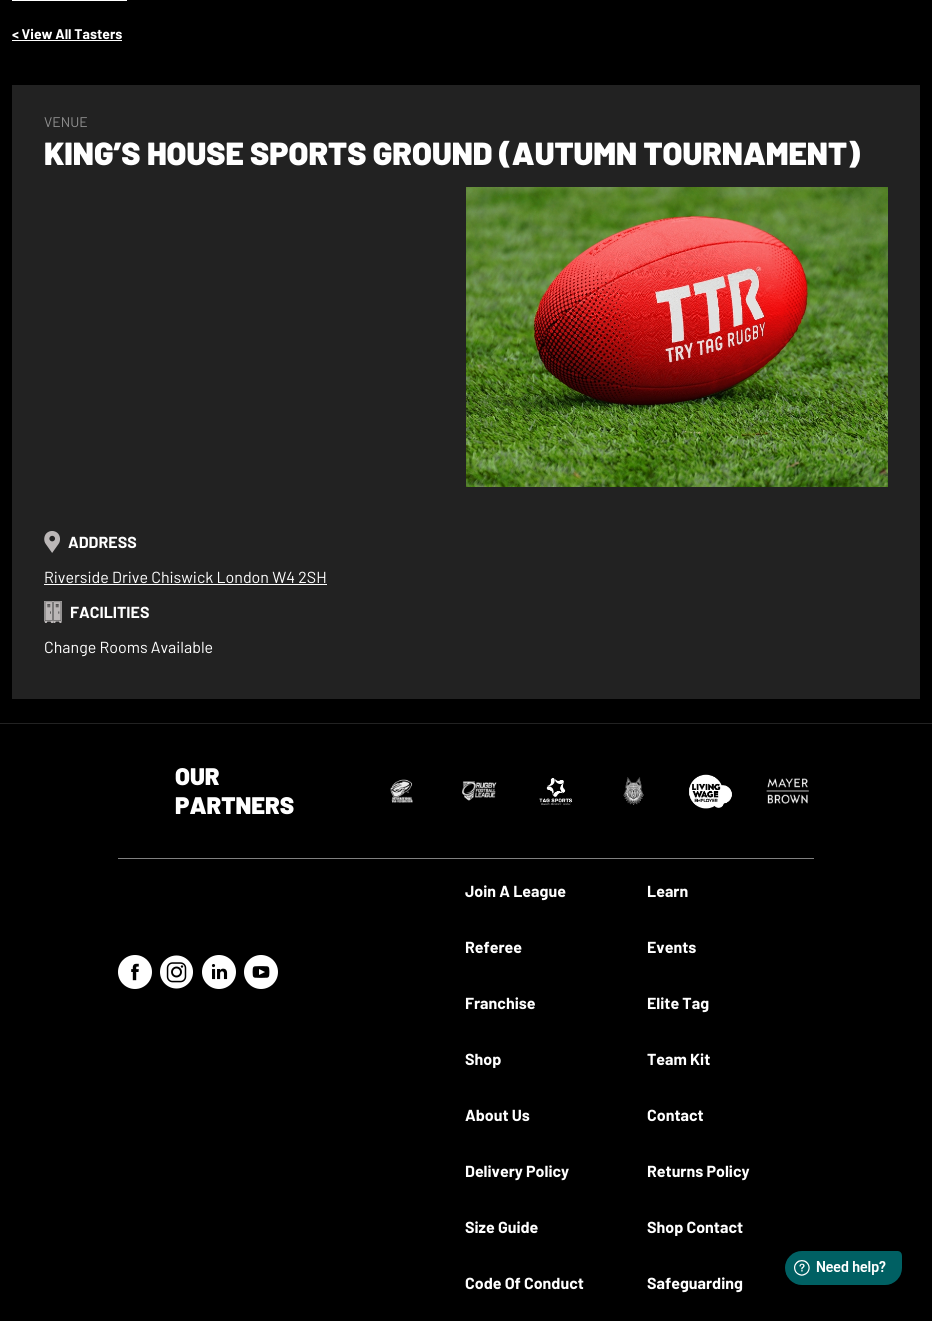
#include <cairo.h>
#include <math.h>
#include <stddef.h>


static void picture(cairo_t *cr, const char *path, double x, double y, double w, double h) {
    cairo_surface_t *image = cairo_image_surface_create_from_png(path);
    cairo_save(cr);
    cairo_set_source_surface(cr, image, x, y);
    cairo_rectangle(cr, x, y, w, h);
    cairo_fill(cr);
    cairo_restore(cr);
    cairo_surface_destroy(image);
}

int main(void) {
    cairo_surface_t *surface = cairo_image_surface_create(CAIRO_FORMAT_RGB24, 932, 1321);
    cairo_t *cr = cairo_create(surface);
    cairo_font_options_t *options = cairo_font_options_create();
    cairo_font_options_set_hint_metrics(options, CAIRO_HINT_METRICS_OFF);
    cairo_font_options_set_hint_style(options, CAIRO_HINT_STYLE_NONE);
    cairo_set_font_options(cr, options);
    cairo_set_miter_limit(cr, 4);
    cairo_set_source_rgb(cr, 0, 0, 0);
    cairo_paint(cr);
    cairo_set_source_rgb(cr, 1, 1, 1);
    cairo_rectangle(cr, 12, 0, 115, 1);
    cairo_fill(cr);
    cairo_select_font_face(cr, "Barlow", CAIRO_FONT_SLANT_NORMAL, CAIRO_FONT_WEIGHT_BOLD);
    cairo_set_font_size(cr, 14);
    cairo_move_to(cr, 12, 39);
    cairo_show_text(cr, "< View All Tasters");
    cairo_rectangle(cr, 12, 40, 110, 1);
    cairo_fill(cr);
    cairo_set_source_rgb(cr, 0.133, 0.133, 0.133);
    cairo_rectangle(cr, 12, 85, 908, 614);
    cairo_fill(cr);
    cairo_select_font_face(cr, "Barlow", CAIRO_FONT_SLANT_NORMAL, CAIRO_FONT_WEIGHT_NORMAL);
    cairo_set_source_rgb(cr, 0.569, 0.569, 0.569);
    cairo_move_to(cr, 44, 127);
    cairo_show_text(cr, "VENUE");
    cairo_select_font_face(cr, "Barlow Black", CAIRO_FONT_SLANT_NORMAL, CAIRO_FONT_WEIGHT_NORMAL);
    cairo_set_font_size(cr, 32);
    cairo_set_source_rgb(cr, 1, 1, 1);
    cairo_move_to(cr, 44, 165);
    cairo_show_text(cr, "KING’S HOUSE SPORTS GROUND (AUTUMN TOURNAMENT)");
    picture(cr, "img1.png", 466, 187, 422, 300);
    picture(cr, "img2.png", 44, 531, 16, 22);
    cairo_select_font_face(cr, "Barlow", CAIRO_FONT_SLANT_NORMAL, CAIRO_FONT_WEIGHT_BOLD);
    cairo_set_font_size(cr, 16);
    cairo_move_to(cr, 68, 548);
    cairo_show_text(cr, "ADDRESS");
    cairo_select_font_face(cr, "Barlow", CAIRO_FONT_SLANT_NORMAL, CAIRO_FONT_WEIGHT_NORMAL);
    cairo_move_to(cr, 44, 583);
    cairo_show_text(cr, "Riverside Drive Chiswick London W4 2SH");
    cairo_rectangle(cr, 44, 584, 283, 1);
    cairo_fill(cr);
    picture(cr, "img3.png", 44, 601, 18, 22);
    cairo_select_font_face(cr, "Barlow", CAIRO_FONT_SLANT_NORMAL, CAIRO_FONT_WEIGHT_BOLD);
    cairo_move_to(cr, 70, 618);
    cairo_show_text(cr, "FACILITIES");
    cairo_select_font_face(cr, "Barlow", CAIRO_FONT_SLANT_NORMAL, CAIRO_FONT_WEIGHT_NORMAL);
    cairo_move_to(cr, 44, 653);
    cairo_show_text(cr, "Change Rooms Available");
    cairo_set_source_rgb(cr, 0.133, 0.133, 0.133);
    cairo_rectangle(cr, 0, 723, 932, 1);
    cairo_fill(cr);
    cairo_select_font_face(cr, "Barlow Black", CAIRO_FONT_SLANT_NORMAL, CAIRO_FONT_WEIGHT_NORMAL);
    cairo_set_font_size(cr, 24);
    cairo_set_source_rgb(cr, 1, 1, 1);
    cairo_move_to(cr, 175, 785);
    cairo_show_text(cr, "OUR");
    cairo_move_to(cr, 175, 814);
    cairo_show_text(cr, "PARTNERS");
    picture(cr, "img4.png", 390, 779, 23, 24);
    picture(cr, "img5.png", 462, 781, 35, 20);
    picture(cr, "img6.png", 539, 777, 34, 28);
    picture(cr, "img7.png", 623, 777, 21, 28);
    picture(cr, "img8.png", 689, 774, 43, 35);
    picture(cr, "img9.png", 766, 778, 43, 26);
    cairo_set_source_rgb(cr, 0.502, 0.502, 0.502);
    cairo_rectangle(cr, 118, 858, 696, 1);
    cairo_fill(cr);
    picture(cr, "img10.png", 118, 955, 34, 34);
    picture(cr, "img11.png", 160, 955, 33, 34);
    picture(cr, "img12.png", 202, 955, 34, 34);
    picture(cr, "img13.png", 244, 955, 34, 34);
    cairo_select_font_face(cr, "Barlow", CAIRO_FONT_SLANT_NORMAL, CAIRO_FONT_WEIGHT_BOLD);
    cairo_set_font_size(cr, 16);
    cairo_set_source_rgb(cr, 1, 1, 1);
    cairo_move_to(cr, 465, 897);
    cairo_show_text(cr, "Join A League");
    cairo_move_to(cr, 647, 897);
    cairo_show_text(cr, "Learn");
    cairo_move_to(cr, 465, 953);
    cairo_show_text(cr, "Referee");
    cairo_move_to(cr, 647, 953);
    cairo_show_text(cr, "Events");
    cairo_move_to(cr, 465, 1009);
    cairo_show_text(cr, "Franchise");
    cairo_move_to(cr, 647, 1009);
    cairo_show_text(cr, "Elite Tag");
    cairo_move_to(cr, 465, 1065);
    cairo_show_text(cr, "Shop");
    cairo_move_to(cr, 647, 1065);
    cairo_show_text(cr, "Team Kit");
    cairo_move_to(cr, 465, 1121);
    cairo_show_text(cr, "About Us");
    cairo_move_to(cr, 647, 1121);
    cairo_show_text(cr, "Contact");
    cairo_move_to(cr, 465, 1177);
    cairo_show_text(cr, "Delivery Policy");
    cairo_move_to(cr, 647, 1177);
    cairo_show_text(cr, "Returns Policy");
    cairo_move_to(cr, 465, 1233);
    cairo_show_text(cr, "Size Guide");
    cairo_move_to(cr, 647, 1233);
    cairo_show_text(cr, "Shop Contact");
    cairo_move_to(cr, 465, 1289);
    cairo_show_text(cr, "Code Of Conduct");
    cairo_move_to(cr, 647, 1289);
    cairo_show_text(cr, "Safeguarding");
    picture(cr, "img14.png", 785, 1251, 117, 34);
    cairo_surface_write_to_png(surface, "page.png");
    cairo_font_options_destroy(options);
    cairo_destroy(cr);
    cairo_surface_destroy(surface);
    return 0;
}
